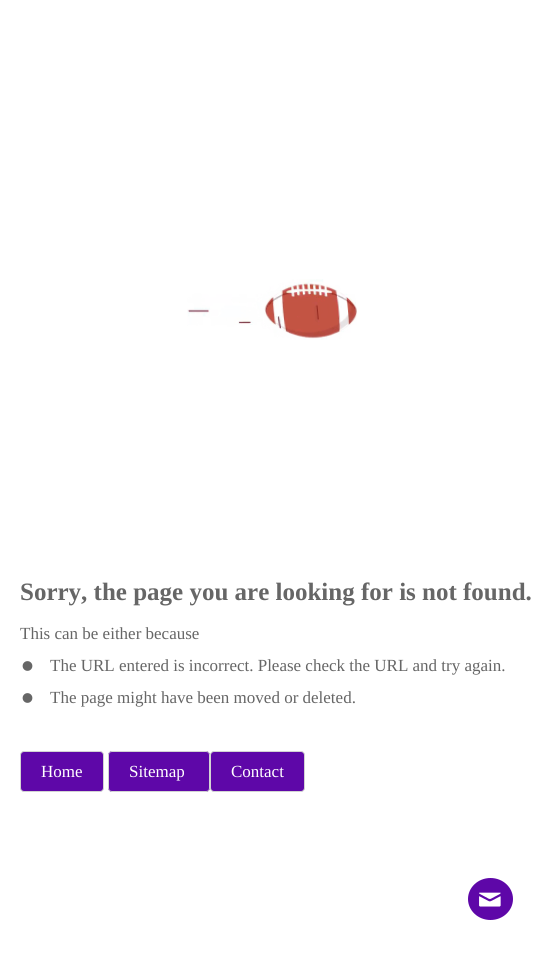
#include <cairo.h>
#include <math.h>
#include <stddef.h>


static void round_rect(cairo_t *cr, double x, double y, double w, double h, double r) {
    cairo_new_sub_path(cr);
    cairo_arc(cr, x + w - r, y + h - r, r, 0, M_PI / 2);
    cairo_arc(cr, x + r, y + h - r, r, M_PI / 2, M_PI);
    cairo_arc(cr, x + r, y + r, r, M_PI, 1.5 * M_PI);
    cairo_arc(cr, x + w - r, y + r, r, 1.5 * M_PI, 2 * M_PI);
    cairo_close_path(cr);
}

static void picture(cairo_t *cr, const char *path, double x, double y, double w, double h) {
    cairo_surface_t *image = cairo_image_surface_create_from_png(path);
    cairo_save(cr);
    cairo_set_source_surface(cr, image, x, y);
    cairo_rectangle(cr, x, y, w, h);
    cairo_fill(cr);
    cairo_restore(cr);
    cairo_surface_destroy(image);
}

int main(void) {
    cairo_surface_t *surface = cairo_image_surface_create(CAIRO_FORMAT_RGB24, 533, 960);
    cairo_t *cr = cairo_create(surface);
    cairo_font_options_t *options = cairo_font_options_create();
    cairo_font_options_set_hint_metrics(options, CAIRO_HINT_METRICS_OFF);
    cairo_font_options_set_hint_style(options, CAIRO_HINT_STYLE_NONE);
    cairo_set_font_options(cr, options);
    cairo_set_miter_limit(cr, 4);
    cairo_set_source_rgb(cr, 1, 1, 1);
    cairo_paint(cr);
    picture(cr, "img1.png", 187, 279, 170, 61);
    cairo_select_font_face(cr, "Liberation Serif", CAIRO_FONT_SLANT_NORMAL, CAIRO_FONT_WEIGHT_BOLD);
    cairo_set_font_size(cr, 25);
    cairo_set_source_rgb(cr, 0.4, 0.4, 0.4);
    cairo_move_to(cr, 20, 600);
    cairo_show_text(cr, "Sorry, the page you are looking for is not found.");
    cairo_select_font_face(cr, "Liberation Serif", CAIRO_FONT_SLANT_NORMAL, CAIRO_FONT_WEIGHT_NORMAL);
    cairo_set_font_size(cr, 17);
    cairo_move_to(cr, 20, 639);
    cairo_show_text(cr, "This can be either because");
    cairo_select_font_face(cr, "Liberation Serif", CAIRO_FONT_SLANT_NORMAL, CAIRO_FONT_WEIGHT_BOLD);
    cairo_set_font_size(cr, 60);
    cairo_move_to(cr, 20, 670);
    cairo_show_text(cr, ".");
    cairo_select_font_face(cr, "Liberation Serif", CAIRO_FONT_SLANT_NORMAL, CAIRO_FONT_WEIGHT_NORMAL);
    cairo_set_font_size(cr, 17);
    cairo_move_to(cr, 50, 671);
    cairo_show_text(cr, "The URL entered is incorrect. Please check the URL and try again.");
    cairo_select_font_face(cr, "Liberation Serif", CAIRO_FONT_SLANT_NORMAL, CAIRO_FONT_WEIGHT_BOLD);
    cairo_set_font_size(cr, 60);
    cairo_move_to(cr, 20, 702);
    cairo_show_text(cr, ".");
    cairo_select_font_face(cr, "Liberation Serif", CAIRO_FONT_SLANT_NORMAL, CAIRO_FONT_WEIGHT_NORMAL);
    cairo_set_font_size(cr, 17);
    cairo_move_to(cr, 50, 703);
    cairo_show_text(cr, "The page might have been moved or deleted.");
    cairo_set_source_rgb(cr, 0.369, 0.031, 0.659);
    round_rect(cr, 20.5, 751.5, 83, 40, 3.5);
    cairo_fill_preserve(cr);
    cairo_set_source_rgb(cr, 0.827, 0.827, 0.827);
    cairo_set_line_width(cr, 1);
    cairo_stroke(cr);
    cairo_set_source_rgb(cr, 1, 1, 1);
    cairo_move_to(cr, 41, 777);
    cairo_show_text(cr, "Home");
    cairo_set_source_rgb(cr, 0.369, 0.031, 0.659);
    cairo_new_path(cr);
    cairo_move_to(cr, 112, 751);
    cairo_line_to(cr, 185, 751);
    cairo_line_to(cr, 185, 792);
    cairo_line_to(cr, 112, 792);
    cairo_curve_to(cr, 110, 792, 108, 790, 108, 788);
    cairo_line_to(cr, 108, 755);
    cairo_curve_to(cr, 108, 753, 110, 751, 112, 751);
    cairo_close_path(cr);
    cairo_fill(cr);
    cairo_set_source_rgb(cr, 0.827, 0.827, 0.827);
    cairo_set_fill_rule(cr, CAIRO_FILL_RULE_EVEN_ODD);
    cairo_new_path(cr);
    cairo_move_to(cr, 112, 751);
    cairo_line_to(cr, 185, 751);
    cairo_line_to(cr, 185, 792);
    cairo_line_to(cr, 112, 792);
    cairo_curve_to(cr, 110, 792, 108, 790, 108, 788);
    cairo_line_to(cr, 108, 755);
    cairo_curve_to(cr, 108, 753, 110, 751, 112, 751);
    cairo_close_path(cr);
    cairo_move_to(cr, 112, 752);
    cairo_line_to(cr, 185, 752);
    cairo_line_to(cr, 185, 791);
    cairo_line_to(cr, 112, 791);
    cairo_curve_to(cr, 110, 791, 109, 790, 109, 788);
    cairo_line_to(cr, 109, 755);
    cairo_curve_to(cr, 109, 753, 110, 752, 112, 752);
    cairo_close_path(cr);
    cairo_fill(cr);
    cairo_set_source_rgb(cr, 1, 1, 1);
    cairo_move_to(cr, 129, 777);
    cairo_show_text(cr, "Sitemap");
    cairo_set_source_rgb(cr, 0.369, 0.031, 0.659);
    cairo_new_path(cr);
    cairo_move_to(cr, 185, 751);
    cairo_line_to(cr, 206, 751);
    cairo_curve_to(cr, 208, 751, 210, 753, 210, 755);
    cairo_line_to(cr, 210, 788);
    cairo_curve_to(cr, 210, 790, 208, 792, 206, 792);
    cairo_line_to(cr, 185, 792);
    cairo_close_path(cr);
    cairo_fill(cr);
    cairo_set_source_rgb(cr, 0.827, 0.827, 0.827);
    cairo_new_path(cr);
    cairo_move_to(cr, 185, 751);
    cairo_line_to(cr, 206, 751);
    cairo_curve_to(cr, 208, 751, 210, 753, 210, 755);
    cairo_line_to(cr, 210, 788);
    cairo_curve_to(cr, 210, 790, 208, 792, 206, 792);
    cairo_line_to(cr, 185, 792);
    cairo_close_path(cr);
    cairo_move_to(cr, 185, 752);
    cairo_line_to(cr, 206, 752);
    cairo_curve_to(cr, 208, 752, 209, 753, 209, 755);
    cairo_line_to(cr, 209, 788);
    cairo_curve_to(cr, 209, 790, 208, 791, 206, 791);
    cairo_line_to(cr, 185, 791);
    cairo_close_path(cr);
    cairo_fill(cr);
    cairo_set_source_rgb(cr, 0.369, 0.031, 0.659);
    round_rect(cr, 210.5, 751.5, 94, 40, 3.5);
    cairo_fill_preserve(cr);
    cairo_set_source_rgb(cr, 0.827, 0.827, 0.827);
    cairo_stroke(cr);
    cairo_set_source_rgb(cr, 1, 1, 1);
    cairo_move_to(cr, 231, 777);
    cairo_show_text(cr, "Contact");
    cairo_set_source_rgb(cr, 0.369, 0.031, 0.659);
    cairo_new_path(cr);
    cairo_move_to(cr, 490.5, 878);
    cairo_curve_to(cr, 503, 878, 513, 887.5, 513, 899);
    cairo_curve_to(cr, 513, 910.5, 503, 920, 490.5, 920);
    cairo_curve_to(cr, 478, 920, 468, 910.5, 468, 899);
    cairo_curve_to(cr, 468, 887.5, 478, 878, 490.5, 878);
    cairo_close_path(cr);
    cairo_fill(cr);
    picture(cr, "img2.png", 479, 892, 22, 15);
    cairo_surface_write_to_png(surface, "page.png");
    cairo_font_options_destroy(options);
    cairo_destroy(cr);
    cairo_surface_destroy(surface);
    return 0;
}
